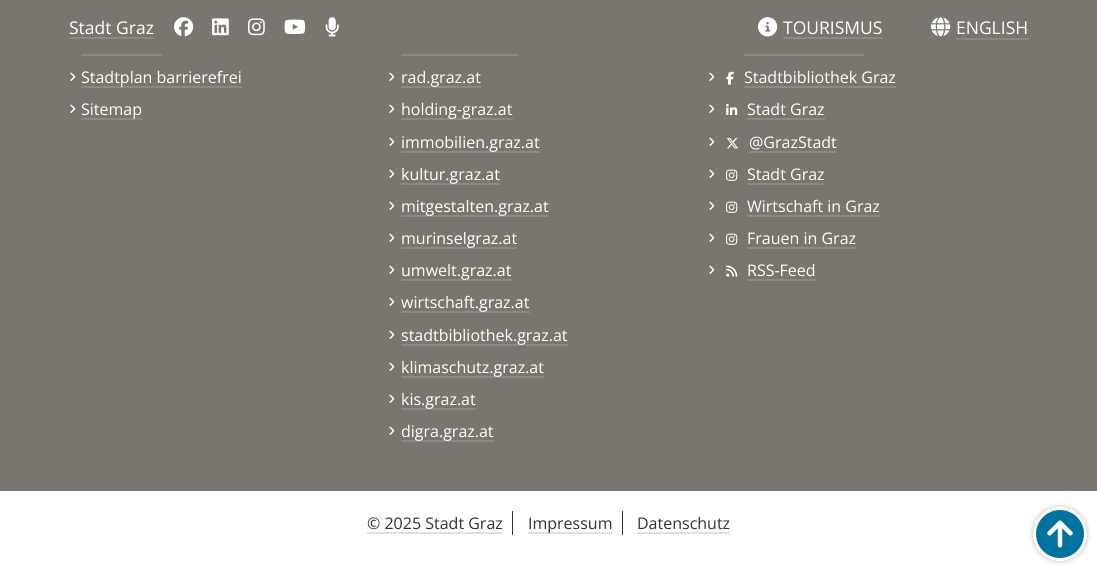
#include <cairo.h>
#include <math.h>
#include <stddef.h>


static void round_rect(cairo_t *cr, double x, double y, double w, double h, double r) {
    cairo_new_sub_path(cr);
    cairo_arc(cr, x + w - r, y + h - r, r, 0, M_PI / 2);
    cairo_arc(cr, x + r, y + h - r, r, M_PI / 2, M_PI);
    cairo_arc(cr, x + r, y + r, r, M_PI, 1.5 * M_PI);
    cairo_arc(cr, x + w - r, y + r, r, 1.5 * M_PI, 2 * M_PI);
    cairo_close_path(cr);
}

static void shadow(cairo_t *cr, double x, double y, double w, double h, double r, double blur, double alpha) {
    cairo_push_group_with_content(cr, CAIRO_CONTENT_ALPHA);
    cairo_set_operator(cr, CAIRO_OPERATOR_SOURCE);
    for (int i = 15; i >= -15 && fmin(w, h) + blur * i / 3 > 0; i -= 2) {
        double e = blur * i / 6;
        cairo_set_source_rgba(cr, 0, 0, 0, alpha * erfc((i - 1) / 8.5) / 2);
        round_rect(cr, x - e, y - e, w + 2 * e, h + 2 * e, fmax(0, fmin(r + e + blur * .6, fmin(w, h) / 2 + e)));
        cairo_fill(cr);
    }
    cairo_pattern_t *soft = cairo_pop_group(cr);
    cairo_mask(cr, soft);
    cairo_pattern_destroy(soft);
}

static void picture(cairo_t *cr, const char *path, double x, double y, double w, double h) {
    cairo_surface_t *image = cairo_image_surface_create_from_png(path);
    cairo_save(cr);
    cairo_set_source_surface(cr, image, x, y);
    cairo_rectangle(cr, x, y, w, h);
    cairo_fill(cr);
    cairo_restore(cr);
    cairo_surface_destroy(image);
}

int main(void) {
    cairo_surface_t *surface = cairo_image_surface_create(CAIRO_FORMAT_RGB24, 1097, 571);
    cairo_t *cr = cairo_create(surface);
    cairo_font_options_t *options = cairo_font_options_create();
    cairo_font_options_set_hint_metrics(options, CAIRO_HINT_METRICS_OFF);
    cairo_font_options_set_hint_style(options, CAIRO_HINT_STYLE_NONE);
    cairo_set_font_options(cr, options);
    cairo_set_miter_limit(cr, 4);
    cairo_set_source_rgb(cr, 1, 1, 1);
    cairo_paint(cr);
    cairo_set_source_rgb(cr, 0.475, 0.463, 0.439);
    cairo_rectangle(cr, 0, 0, 1097, 491);
    cairo_fill(cr);
    cairo_select_font_face(cr, "Open Sans", CAIRO_FONT_SLANT_NORMAL, CAIRO_FONT_WEIGHT_NORMAL);
    cairo_set_font_size(cr, 17.5);
    cairo_set_source_rgb(cr, 1, 1, 1);
    cairo_move_to(cr, 69, 34);
    cairo_show_text(cr, "Stadt Graz");
    cairo_set_source_rgb(cr, 0.549, 0.533, 0.518);
    cairo_rectangle(cr, 69, 37, 85, 2);
    cairo_fill(cr);
    picture(cr, "img1.png", 174, 17, 20, 20);
    picture(cr, "img2.png", 212, 18, 17, 18);
    picture(cr, "img3.png", 248, 18, 17, 18);
    picture(cr, "img4.png", 284, 19, 22, 15);
    picture(cr, "img5.png", 325, 17, 14, 20);
    picture(cr, "img6.png", 758, 17, 20, 20);
    cairo_rectangle(cr, 783, 37, 100, 2);
    cairo_fill(cr);
    cairo_set_source_rgb(cr, 1, 1, 1);
    cairo_move_to(cr, 783, 34);
    cairo_show_text(cr, "TOURISMUS");
    picture(cr, "img7.png", 931, 17, 20, 20);
    cairo_set_source_rgb(cr, 0.549, 0.533, 0.518);
    cairo_rectangle(cr, 956, 38, 73, 2);
    cairo_fill(cr);
    cairo_set_source_rgb(cr, 1, 1, 1);
    cairo_move_to(cr, 956, 34);
    cairo_show_text(cr, "ENGLISH");
    cairo_set_source_rgb(cr, 0.737, 0.737, 0.737);
    shadow(cr, 1033, 507, 54, 54, 27, 2.5, 1);
    cairo_set_source_rgb(cr, 1, 1, 1);
    cairo_arc(cr, 1060, 534, 25.5, 0, 2 * M_PI);
    cairo_fill_preserve(cr);
    cairo_set_line_width(cr, 3);
    cairo_stroke(cr);
    picture(cr, "img8.png", 1036, 510, 48, 48);
    cairo_set_source_rgb(cr, 0.549, 0.533, 0.518);
    cairo_rectangle(cr, 81, 54, 81, 2);
    cairo_fill(cr);
    picture(cr, "img9.png", 70, 72, 6, 9);
    cairo_rectangle(cr, 81, 86, 161, 2);
    cairo_fill(cr);
    cairo_set_font_size(cr, 16);
    cairo_set_source_rgb(cr, 1, 1, 1);
    cairo_move_to(cr, 81, 83);
    cairo_show_text(cr, "Stadtplan barrierefrei");
    picture(cr, "img9.png", 70, 104, 6, 9);
    cairo_set_source_rgb(cr, 0.549, 0.533, 0.518);
    cairo_rectangle(cr, 81, 118, 61, 2);
    cairo_fill(cr);
    cairo_set_source_rgb(cr, 1, 1, 1);
    cairo_move_to(cr, 81, 115);
    cairo_show_text(cr, "Sitemap");
    cairo_set_source_rgb(cr, 0.549, 0.533, 0.518);
    cairo_rectangle(cr, 401, 54, 117, 2);
    cairo_fill(cr);
    picture(cr, "img9.png", 389, 72, 6, 9);
    cairo_rectangle(cr, 401, 86, 80, 2);
    cairo_fill(cr);
    cairo_set_source_rgb(cr, 1, 1, 1);
    cairo_move_to(cr, 401, 83);
    cairo_show_text(cr, "rad.graz.at");
    picture(cr, "img9.png", 389, 104, 6, 9);
    cairo_set_source_rgb(cr, 0.549, 0.533, 0.518);
    cairo_rectangle(cr, 401, 118, 112, 2);
    cairo_fill(cr);
    cairo_set_source_rgb(cr, 1, 1, 1);
    cairo_move_to(cr, 401, 115);
    cairo_show_text(cr, "holding-graz.at");
    picture(cr, "img9.png", 389, 137, 6, 9);
    cairo_set_source_rgb(cr, 0.549, 0.533, 0.518);
    cairo_rectangle(cr, 401, 151, 139, 2);
    cairo_fill(cr);
    cairo_set_source_rgb(cr, 1, 1, 1);
    cairo_move_to(cr, 401, 148);
    cairo_show_text(cr, "immobilien.graz.at");
    picture(cr, "img9.png", 389, 169, 6, 9);
    cairo_set_source_rgb(cr, 0.549, 0.533, 0.518);
    cairo_rectangle(cr, 401, 183, 99, 2);
    cairo_fill(cr);
    cairo_set_source_rgb(cr, 1, 1, 1);
    cairo_move_to(cr, 401, 180);
    cairo_show_text(cr, "kultur.graz.at");
    picture(cr, "img9.png", 389, 201, 6, 9);
    cairo_set_source_rgb(cr, 0.549, 0.533, 0.518);
    cairo_rectangle(cr, 401, 215, 148, 2);
    cairo_fill(cr);
    cairo_set_source_rgb(cr, 1, 1, 1);
    cairo_move_to(cr, 401, 212);
    cairo_show_text(cr, "mitgestalten.graz.at");
    picture(cr, "img9.png", 389, 233, 6, 9);
    cairo_set_source_rgb(cr, 0.549, 0.533, 0.518);
    cairo_rectangle(cr, 401, 247, 116, 2);
    cairo_fill(cr);
    cairo_set_source_rgb(cr, 1, 1, 1);
    cairo_move_to(cr, 401, 244);
    cairo_show_text(cr, "murinselgraz.at");
    picture(cr, "img9.png", 389, 265, 6, 9);
    cairo_set_source_rgb(cr, 0.549, 0.533, 0.518);
    cairo_rectangle(cr, 401, 279, 111, 2);
    cairo_fill(cr);
    cairo_set_source_rgb(cr, 1, 1, 1);
    cairo_move_to(cr, 401, 276);
    cairo_show_text(cr, "umwelt.graz.at");
    picture(cr, "img9.png", 389, 297, 6, 9);
    cairo_set_source_rgb(cr, 0.549, 0.533, 0.518);
    cairo_rectangle(cr, 401, 311, 129, 2);
    cairo_fill(cr);
    cairo_set_source_rgb(cr, 1, 1, 1);
    cairo_move_to(cr, 401, 308);
    cairo_show_text(cr, "wirtschaft.graz.at");
    picture(cr, "img9.png", 389, 330, 6, 9);
    cairo_set_source_rgb(cr, 0.549, 0.533, 0.518);
    cairo_rectangle(cr, 401, 344, 167, 2);
    cairo_fill(cr);
    cairo_set_source_rgb(cr, 1, 1, 1);
    cairo_move_to(cr, 401, 341);
    cairo_show_text(cr, "stadtbibliothek.graz.at");
    picture(cr, "img9.png", 389, 362, 6, 9);
    cairo_set_source_rgb(cr, 0.549, 0.533, 0.518);
    cairo_rectangle(cr, 401, 376, 143, 2);
    cairo_fill(cr);
    cairo_set_source_rgb(cr, 1, 1, 1);
    cairo_move_to(cr, 401, 373);
    cairo_show_text(cr, "klimaschutz.graz.at");
    picture(cr, "img9.png", 389, 394, 6, 9);
    cairo_set_source_rgb(cr, 0.549, 0.533, 0.518);
    cairo_rectangle(cr, 401, 408, 75, 2);
    cairo_fill(cr);
    cairo_set_source_rgb(cr, 1, 1, 1);
    cairo_move_to(cr, 401, 405);
    cairo_show_text(cr, "kis.graz.at");
    picture(cr, "img9.png", 389, 426, 6, 9);
    cairo_set_source_rgb(cr, 0.549, 0.533, 0.518);
    cairo_rectangle(cr, 401, 440, 93, 2);
    cairo_fill(cr);
    cairo_set_source_rgb(cr, 1, 1, 1);
    cairo_move_to(cr, 401, 437);
    cairo_show_text(cr, "digra.graz.at");
    cairo_set_source_rgb(cr, 0.549, 0.533, 0.518);
    cairo_rectangle(cr, 744, 54, 120, 2);
    cairo_fill(cr);
    picture(cr, "img9.png", 709, 72, 6, 9);
    picture(cr, "img10.png", 726, 71, 8, 14);
    cairo_set_source_rgb(cr, 1, 1, 1);
    cairo_move_to(cr, 744, 83);
    cairo_show_text(cr, "Stadtbibliothek Graz");
    cairo_set_source_rgb(cr, 0.549, 0.533, 0.518);
    cairo_rectangle(cr, 744, 86, 152, 2);
    cairo_fill(cr);
    picture(cr, "img9.png", 709, 104, 6, 9);
    picture(cr, "img11.png", 726, 103, 12, 12);
    cairo_set_source_rgb(cr, 1, 1, 1);
    cairo_move_to(cr, 747, 115);
    cairo_show_text(cr, "Stadt Graz");
    cairo_set_source_rgb(cr, 0.549, 0.533, 0.518);
    cairo_rectangle(cr, 747, 118, 78, 2);
    cairo_fill(cr);
    picture(cr, "img9.png", 709, 137, 6, 9);
    picture(cr, "img12.png", 726, 138, 12, 11);
    cairo_set_source_rgb(cr, 1, 1, 1);
    cairo_move_to(cr, 749, 148);
    cairo_show_text(cr, "@GrazStadt");
    cairo_set_source_rgb(cr, 0.549, 0.533, 0.518);
    cairo_rectangle(cr, 749, 151, 88, 2);
    cairo_fill(cr);
    picture(cr, "img9.png", 709, 169, 6, 9);
    picture(cr, "img13.png", 726, 169, 12, 12);
    cairo_set_source_rgb(cr, 1, 1, 1);
    cairo_move_to(cr, 747, 180);
    cairo_show_text(cr, "Stadt Graz");
    cairo_set_source_rgb(cr, 0.549, 0.533, 0.518);
    cairo_rectangle(cr, 747, 183, 78, 2);
    cairo_fill(cr);
    picture(cr, "img9.png", 709, 201, 6, 9);
    picture(cr, "img13.png", 726, 201, 12, 12);
    cairo_set_source_rgb(cr, 1, 1, 1);
    cairo_move_to(cr, 747, 212);
    cairo_show_text(cr, "Wirtschaft in Graz");
    cairo_set_source_rgb(cr, 0.549, 0.533, 0.518);
    cairo_rectangle(cr, 747, 215, 133, 2);
    cairo_fill(cr);
    picture(cr, "img9.png", 709, 233, 6, 9);
    picture(cr, "img13.png", 726, 233, 12, 12);
    cairo_set_source_rgb(cr, 1, 1, 1);
    cairo_move_to(cr, 747, 244);
    cairo_show_text(cr, "Frauen in Graz");
    cairo_set_source_rgb(cr, 0.549, 0.533, 0.518);
    cairo_rectangle(cr, 747, 247, 110, 2);
    cairo_fill(cr);
    picture(cr, "img9.png", 709, 265, 6, 9);
    picture(cr, "img14.png", 726, 265, 12, 12);
    cairo_set_source_rgb(cr, 1, 1, 1);
    cairo_move_to(cr, 747, 276);
    cairo_show_text(cr, "RSS-Feed");
    cairo_set_source_rgb(cr, 0.549, 0.533, 0.518);
    cairo_rectangle(cr, 747, 279, 69, 2);
    cairo_fill(cr);
    cairo_set_source_rgb(cr, 0.2, 0.2, 0.2);
    cairo_rectangle(cr, 512, 511, 1, 24);
    cairo_fill(cr);
    cairo_move_to(cr, 367, 529);
    cairo_show_text(cr, "© 2025 Stadt Graz");
    cairo_set_source_rgb(cr, 0.878, 0.878, 0.878);
    cairo_rectangle(cr, 367, 532, 135, 2);
    cairo_fill(cr);
    cairo_set_source_rgb(cr, 0.2, 0.2, 0.2);
    cairo_rectangle(cr, 622, 511, 1, 24);
    cairo_fill(cr);
    cairo_set_source_rgb(cr, 0.878, 0.878, 0.878);
    cairo_rectangle(cr, 528, 532, 84, 2);
    cairo_fill(cr);
    cairo_set_source_rgb(cr, 0.2, 0.2, 0.2);
    cairo_move_to(cr, 528, 529);
    cairo_show_text(cr, "Impressum");
    cairo_move_to(cr, 637, 529);
    cairo_show_text(cr, "Datenschutz");
    cairo_set_source_rgb(cr, 0.878, 0.878, 0.878);
    cairo_rectangle(cr, 637, 532, 93, 2);
    cairo_fill(cr);
    cairo_surface_write_to_png(surface, "page.png");
    cairo_font_options_destroy(options);
    cairo_destroy(cr);
    cairo_surface_destroy(surface);
    return 0;
}
